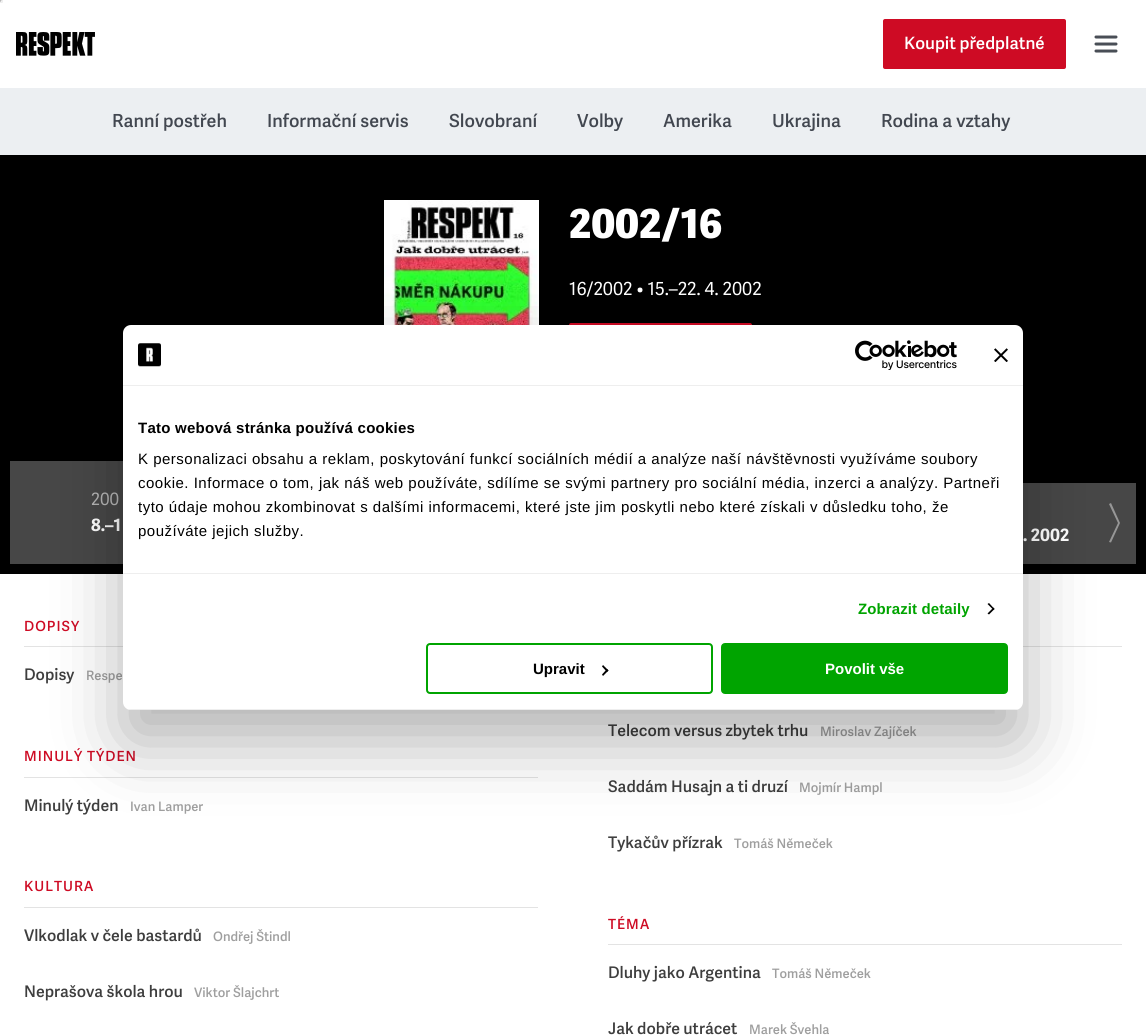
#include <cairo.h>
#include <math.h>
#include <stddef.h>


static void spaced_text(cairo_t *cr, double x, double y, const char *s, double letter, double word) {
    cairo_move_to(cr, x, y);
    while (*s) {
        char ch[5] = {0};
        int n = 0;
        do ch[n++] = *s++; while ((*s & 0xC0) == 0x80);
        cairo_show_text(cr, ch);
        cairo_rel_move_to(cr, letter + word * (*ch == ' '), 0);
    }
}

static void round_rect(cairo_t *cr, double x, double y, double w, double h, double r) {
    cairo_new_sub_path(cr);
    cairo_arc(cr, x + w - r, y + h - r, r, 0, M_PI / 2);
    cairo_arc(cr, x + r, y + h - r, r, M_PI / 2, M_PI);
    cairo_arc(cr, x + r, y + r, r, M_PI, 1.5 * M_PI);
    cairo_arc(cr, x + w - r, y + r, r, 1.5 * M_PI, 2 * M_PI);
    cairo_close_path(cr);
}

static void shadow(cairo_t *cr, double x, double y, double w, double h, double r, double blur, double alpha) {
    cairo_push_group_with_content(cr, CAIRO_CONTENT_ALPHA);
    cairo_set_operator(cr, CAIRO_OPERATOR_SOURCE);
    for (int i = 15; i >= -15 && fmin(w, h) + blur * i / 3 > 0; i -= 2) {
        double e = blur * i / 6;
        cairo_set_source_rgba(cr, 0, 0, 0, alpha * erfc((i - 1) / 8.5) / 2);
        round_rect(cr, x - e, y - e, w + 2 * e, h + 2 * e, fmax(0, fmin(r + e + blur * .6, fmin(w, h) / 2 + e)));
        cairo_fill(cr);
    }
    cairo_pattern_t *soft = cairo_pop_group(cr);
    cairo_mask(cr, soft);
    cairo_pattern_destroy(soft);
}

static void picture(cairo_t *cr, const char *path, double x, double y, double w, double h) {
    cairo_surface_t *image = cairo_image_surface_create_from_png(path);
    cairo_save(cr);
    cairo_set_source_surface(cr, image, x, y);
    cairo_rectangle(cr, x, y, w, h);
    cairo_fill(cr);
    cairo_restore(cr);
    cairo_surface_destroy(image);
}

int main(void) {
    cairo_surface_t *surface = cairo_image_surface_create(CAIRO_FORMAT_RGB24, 1146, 1035);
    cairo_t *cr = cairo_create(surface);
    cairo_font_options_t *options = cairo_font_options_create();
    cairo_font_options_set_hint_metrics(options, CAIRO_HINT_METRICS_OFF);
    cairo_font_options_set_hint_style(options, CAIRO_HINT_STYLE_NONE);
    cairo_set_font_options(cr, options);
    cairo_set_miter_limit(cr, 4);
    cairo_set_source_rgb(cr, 1, 1, 1);
    cairo_paint(cr);
    cairo_set_source_rgb(cr, 0.624, 0.624, 0.624);
    cairo_new_path(cr);
    cairo_move_to(cr, -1, -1);
    cairo_line_to(cr, 3, -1);
    cairo_line_to(cr, 1, 1);
    cairo_close_path(cr);
    cairo_fill(cr);
    cairo_set_source_rgb(cr, 0.933, 0.933, 0.933);
    cairo_new_path(cr);
    cairo_move_to(cr, 3, -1);
    cairo_line_to(cr, 3, 3);
    cairo_line_to(cr, 1, 1);
    cairo_close_path(cr);
    cairo_fill(cr);
    cairo_new_path(cr);
    cairo_move_to(cr, 3, 3);
    cairo_line_to(cr, -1, 3);
    cairo_line_to(cr, 1, 1);
    cairo_close_path(cr);
    cairo_fill(cr);
    cairo_set_source_rgb(cr, 0.624, 0.624, 0.624);
    cairo_new_path(cr);
    cairo_move_to(cr, -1, 3);
    cairo_line_to(cr, -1, -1);
    cairo_line_to(cr, 1, 1);
    cairo_close_path(cr);
    cairo_fill(cr);
    picture(cr, "img1.png", 16, 32, 79, 24);
    cairo_set_source_rgb(cr, 0.808, 0.043, 0.141);
    round_rect(cr, 883, 19, 183, 50, 2);
    cairo_fill(cr);
    cairo_select_font_face(cr, "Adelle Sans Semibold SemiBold", CAIRO_FONT_SLANT_NORMAL, CAIRO_FONT_WEIGHT_NORMAL);
    cairo_set_font_size(cr, 17);
    cairo_set_source_rgb(cr, 1, 1, 1);
    cairo_move_to(cr, 904, 49);
    cairo_show_text(cr, "Koupit předplatné");
    cairo_new_path(cr);
    cairo_move_to(cr, 1096, 37);
    cairo_line_to(cr, 1116, 37);
    cairo_move_to(cr, 1096, 44);
    cairo_line_to(cr, 1116, 44);
    cairo_move_to(cr, 1096, 51);
    cairo_line_to(cr, 1116, 51);
    cairo_set_source_rgb(cr, 0.286, 0.306, 0.337);
    cairo_set_line_width(cr, 3);
    cairo_set_line_cap(cr, CAIRO_LINE_CAP_ROUND);
    cairo_set_line_join(cr, CAIRO_LINE_JOIN_ROUND);
    cairo_stroke(cr);
    cairo_set_source_rgb(cr, 0.925, 0.937, 0.949);
    cairo_rectangle(cr, 0, 88, 1146, 67);
    cairo_fill(cr);
    cairo_set_font_size(cr, 18);
    cairo_set_source_rgb(cr, 0.259, 0.278, 0.314);
    cairo_move_to(cr, 112, 127);
    cairo_show_text(cr, "Ranní postřeh");
    cairo_move_to(cr, 267, 127);
    cairo_show_text(cr, "Informační servis");
    cairo_move_to(cr, 449, 127);
    cairo_show_text(cr, "Slovobraní");
    cairo_move_to(cr, 577, 127);
    cairo_show_text(cr, "Volby");
    cairo_move_to(cr, 663, 127);
    cairo_show_text(cr, "Amerika");
    cairo_move_to(cr, 772, 127);
    cairo_show_text(cr, "Ukrajina");
    cairo_move_to(cr, 881, 127);
    cairo_show_text(cr, "Rodina a vztahy");
    cairo_set_source_rgb(cr, 0, 0, 0);
    cairo_rectangle(cr, 0, 155, 1146, 419);
    cairo_fill(cr);
    picture(cr, "img2.png", 384, 200, 155, 125);
    cairo_select_font_face(cr, "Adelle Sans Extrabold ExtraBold", CAIRO_FONT_SLANT_NORMAL, CAIRO_FONT_WEIGHT_NORMAL);
    cairo_set_font_size(cr, 40);
    cairo_set_source_rgb(cr, 1, 1, 1);
    cairo_move_to(cr, 569, 238);
    cairo_show_text(cr, "2002/16");
    cairo_select_font_face(cr, "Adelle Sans", CAIRO_FONT_SLANT_NORMAL, CAIRO_FONT_WEIGHT_NORMAL);
    cairo_set_font_size(cr, 18);
    cairo_move_to(cr, 569, 295);
    cairo_show_text(cr, "16/2002 • 15.–22. 4. 2002");
    cairo_set_source_rgb(cr, 0.808, 0.043, 0.141);
    round_rect(cr, 569, 323, 183, 50, 2);
    cairo_fill(cr);
    cairo_set_source_rgb(cr, 0.278, 0.278, 0.278);
    cairo_rectangle(cr, 10, 461, 113, 103);
    cairo_fill(cr);
    cairo_set_font_size(cr, 17);
    cairo_set_source_rgb(cr, 0.714, 0.714, 0.714);
    cairo_move_to(cr, 91, 505);
    cairo_show_text(cr, "200");
    cairo_select_font_face(cr, "Adelle Sans", CAIRO_FONT_SLANT_NORMAL, CAIRO_FONT_WEIGHT_BOLD);
    cairo_set_source_rgb(cr, 1, 1, 1);
    cairo_move_to(cr, 91, 531);
    cairo_show_text(cr, "8.–1");
    cairo_set_source_rgb(cr, 0.278, 0.278, 0.278);
    cairo_rectangle(cr, 1023, 483, 113, 81);
    cairo_fill(cr);
    cairo_set_source_rgb(cr, 1, 1, 1);
    cairo_move_to(cr, 1023, 541);
    cairo_show_text(cr, ". 2002");
    cairo_set_source_rgb(cr, 0.592, 0.592, 0.592);
    cairo_new_path(cr);
    cairo_move_to(cr, 1109, 504);
    cairo_line_to(cr, 1111, 503);
    cairo_line_to(cr, 1120, 523);
    cairo_line_to(cr, 1111, 542.5);
    cairo_line_to(cr, 1109, 542);
    cairo_line_to(cr, 1118, 523);
    cairo_close_path(cr);
    cairo_fill(cr);
    cairo_set_source_rgb(cr, 0.89, 0.89, 0.89);
    cairo_rectangle(cr, 24, 646, 99, 1);
    cairo_fill(cr);
    cairo_select_font_face(cr, "Adelle Sans Semibold SemiBold", CAIRO_FONT_SLANT_NORMAL, CAIRO_FONT_WEIGHT_NORMAL);
    cairo_set_font_size(cr, 14);
    cairo_set_source_rgb(cr, 0.808, 0.043, 0.141);
    spaced_text(cr, 24, 631, "DOPISY", 1, 0);
    cairo_set_font_size(cr, 16);
    cairo_set_source_rgb(cr, 0.243, 0.243, 0.243);
    cairo_move_to(cr, 24, 680);
    cairo_show_text(cr, "Dopisy");
    cairo_set_font_size(cr, 13);
    cairo_set_source_rgb(cr, 0.624, 0.624, 0.624);
    cairo_move_to(cr, 86, 680);
    cairo_show_text(cr, "Respe");
    cairo_set_source_rgb(cr, 0.89, 0.89, 0.89);
    cairo_rectangle(cr, 24, 777, 514, 1);
    cairo_fill(cr);
    cairo_set_font_size(cr, 14);
    cairo_set_source_rgb(cr, 0.808, 0.043, 0.141);
    spaced_text(cr, 24, 761, "MINULÝ TÝDEN", 1, 0);
    cairo_set_font_size(cr, 16);
    cairo_set_source_rgb(cr, 0.243, 0.243, 0.243);
    cairo_move_to(cr, 24, 811);
    cairo_show_text(cr, "Minulý týden");
    cairo_set_font_size(cr, 13);
    cairo_set_source_rgb(cr, 0.624, 0.624, 0.624);
    cairo_move_to(cr, 130, 811);
    cairo_show_text(cr, "Ivan Lamper");
    cairo_set_source_rgb(cr, 0.89, 0.89, 0.89);
    cairo_rectangle(cr, 1023, 646, 99, 1);
    cairo_fill(cr);
    cairo_set_font_size(cr, 16);
    cairo_set_source_rgb(cr, 0.243, 0.243, 0.243);
    cairo_move_to(cr, 608, 736);
    cairo_show_text(cr, "Telecom versus zbytek trhu");
    cairo_set_font_size(cr, 13);
    cairo_set_source_rgb(cr, 0.624, 0.624, 0.624);
    cairo_move_to(cr, 820, 736);
    cairo_show_text(cr, "Miroslav Zajíček");
    cairo_set_font_size(cr, 16);
    cairo_set_source_rgb(cr, 0.243, 0.243, 0.243);
    cairo_move_to(cr, 608, 792);
    cairo_show_text(cr, "Saddám Husajn a ti druzí");
    cairo_set_font_size(cr, 13);
    cairo_set_source_rgb(cr, 0.624, 0.624, 0.624);
    cairo_move_to(cr, 799, 792);
    cairo_show_text(cr, "Mojmír Hampl");
    cairo_set_font_size(cr, 16);
    cairo_set_source_rgb(cr, 0.243, 0.243, 0.243);
    cairo_move_to(cr, 608, 848);
    cairo_show_text(cr, "Tykačův přízrak");
    cairo_set_font_size(cr, 13);
    cairo_set_source_rgb(cr, 0.624, 0.624, 0.624);
    cairo_move_to(cr, 734, 848);
    cairo_show_text(cr, "Tomáš Němeček");
    cairo_set_source_rgb(cr, 0.89, 0.89, 0.89);
    cairo_rectangle(cr, 24, 907, 514, 1);
    cairo_fill(cr);
    cairo_set_font_size(cr, 14);
    cairo_set_source_rgb(cr, 0.808, 0.043, 0.141);
    spaced_text(cr, 24, 891, "KULTURA", 1, 0);
    cairo_set_font_size(cr, 16);
    cairo_set_source_rgb(cr, 0.243, 0.243, 0.243);
    cairo_move_to(cr, 24, 941);
    cairo_show_text(cr, "Vlkodlak v čele bastardů");
    cairo_set_font_size(cr, 13);
    cairo_set_source_rgb(cr, 0.624, 0.624, 0.624);
    cairo_move_to(cr, 213, 941);
    cairo_show_text(cr, "Ondřej Štindl");
    cairo_set_font_size(cr, 16);
    cairo_set_source_rgb(cr, 0.243, 0.243, 0.243);
    cairo_move_to(cr, 24, 997);
    cairo_show_text(cr, "Neprašova škola hrou");
    cairo_set_font_size(cr, 13);
    cairo_set_source_rgb(cr, 0.624, 0.624, 0.624);
    cairo_move_to(cr, 194, 997);
    cairo_show_text(cr, "Viktor Šlajchrt");
    cairo_set_source_rgb(cr, 0.89, 0.89, 0.89);
    cairo_rectangle(cr, 608, 944, 514, 1);
    cairo_fill(cr);
    cairo_set_font_size(cr, 14);
    cairo_set_source_rgb(cr, 0.808, 0.043, 0.141);
    spaced_text(cr, 608, 929, "TÉMA", 1, 0);
    cairo_set_font_size(cr, 16);
    cairo_set_source_rgb(cr, 0.243, 0.243, 0.243);
    cairo_move_to(cr, 608, 978);
    cairo_show_text(cr, "Dluhy jako Argentina");
    cairo_set_font_size(cr, 13);
    cairo_set_source_rgb(cr, 0.624, 0.624, 0.624);
    cairo_move_to(cr, 772, 978);
    cairo_show_text(cr, "Tomáš Němeček");
    cairo_set_font_size(cr, 16);
    cairo_set_source_rgb(cr, 0.243, 0.243, 0.243);
    cairo_move_to(cr, 608, 1034);
    cairo_show_text(cr, "Jak dobře utrácet");
    cairo_set_font_size(cr, 13);
    cairo_set_source_rgb(cr, 0.624, 0.624, 0.624);
    cairo_move_to(cr, 749, 1034);
    cairo_show_text(cr, "Marek Švehla");
    cairo_set_source_rgb(cr, 0, 0, 0);
    shadow(cr, 123, 357, 900, 385, 8, 34, 0.3);
    cairo_set_source_rgb(cr, 1, 1, 1);
    round_rect(cr, 123, 325, 900, 385, 8);
    cairo_fill(cr);
    cairo_set_source_rgb(cr, 0.933, 0.933, 0.933);
    cairo_rectangle(cr, 123, 385, 900, 1);
    cairo_fill(cr);
    picture(cr, "img3.png", 138, 343, 23, 24);
    picture(cr, "img4.png", 855, 340, 102, 30);
    picture(cr, "img5.png", 994, 348, 14, 14);
    cairo_rectangle(cr, 123, 573, 900, 1);
    cairo_fill(cr);
    cairo_select_font_face(cr, "Liberation Sans", CAIRO_FONT_SLANT_NORMAL, CAIRO_FONT_WEIGHT_BOLD);
    cairo_set_font_size(cr, 15);
    cairo_set_source_rgb(cr, 0, 0, 0);
    spaced_text(cr, 138, 433, "Tato webová stránka používá cookies", 0.25, 0);
    cairo_select_font_face(cr, "Liberation Sans", CAIRO_FONT_SLANT_NORMAL, CAIRO_FONT_WEIGHT_NORMAL);
    spaced_text(cr, 138, 464, "K personalizaci obsahu a reklam, poskytování funkcí sociálních médií a analýze naší návštěvnosti využíváme soubory", 0.5, 0);
    spaced_text(cr, 138, 488, "cookie. Informace o tom, jak náš web používáte, sdílíme se svými partnery pro sociální média, inzerci a analýzy. Partneři", 0.5, 0);
    spaced_text(cr, 138, 512, "tyto údaje mohou zkombinovat s dalšími informacemi, které jste jim poskytli nebo které získali v důsledku toho, že", 0.5, 0);
    spaced_text(cr, 138, 536, "používáte jejich služby.", 0.5, 0);
    cairo_select_font_face(cr, "Liberation Sans", CAIRO_FONT_SLANT_NORMAL, CAIRO_FONT_WEIGHT_BOLD);
    cairo_set_source_rgb(cr, 0, 0.643, 0);
    spaced_text(cr, 858, 614, "Zobrazit detaily", 0.1, 0);
    cairo_set_source_rgb(cr, 0, 0, 0);
    cairo_new_path(cr);
    cairo_move_to(cr, 989, 603);
    cairo_line_to(cr, 994.5, 609);
    cairo_line_to(cr, 993.5, 610);
    cairo_line_to(cr, 987.5, 604);
    cairo_close_path(cr);
    cairo_fill(cr);
    cairo_new_path(cr);
    cairo_move_to(cr, 993.5, 607.5);
    cairo_line_to(cr, 994.5, 609);
    cairo_line_to(cr, 989, 614.5);
    cairo_line_to(cr, 987.5, 613.5);
    cairo_close_path(cr);
    cairo_fill(cr);
    cairo_save(cr);
    round_rect(cr, 123, 325, 900, 385, 8);
    cairo_clip(cr);
    cairo_set_source_rgb(cr, 0.933, 0.933, 0.933);
    cairo_rectangle(cr, 123, 709, 900, 1);
    cairo_fill(cr);
    cairo_restore(cr);
    round_rect(cr, 427, 644, 285, 49, 3);
    cairo_set_source_rgb(cr, 0, 0.643, 0);
    cairo_set_line_width(cr, 2);
    cairo_set_line_cap(cr, CAIRO_LINE_CAP_BUTT);
    cairo_set_line_join(cr, CAIRO_LINE_JOIN_MITER);
    cairo_stroke(cr);
    cairo_set_source_rgb(cr, 0, 0, 0);
    cairo_move_to(cr, 533, 674);
    cairo_show_text(cr, "Upravit");
    cairo_new_path(cr);
    cairo_move_to(cr, 603, 665);
    cairo_line_to(cr, 608.5, 670.5);
    cairo_line_to(cr, 607, 672);
    cairo_line_to(cr, 602, 666.5);
    cairo_close_path(cr);
    cairo_fill(cr);
    cairo_new_path(cr);
    cairo_move_to(cr, 607, 669);
    cairo_line_to(cr, 608.5, 670.5);
    cairo_line_to(cr, 603, 676);
    cairo_line_to(cr, 602, 674.5);
    cairo_close_path(cr);
    cairo_fill(cr);
    cairo_set_source_rgb(cr, 0, 0.643, 0);
    round_rect(cr, 722, 644, 285, 49, 3);
    cairo_fill_preserve(cr);
    cairo_stroke(cr);
    cairo_set_source_rgb(cr, 1, 1, 1);
    cairo_move_to(cr, 825, 674);
    cairo_show_text(cr, "Povolit vše");
    cairo_surface_write_to_png(surface, "page.png");
    cairo_font_options_destroy(options);
    cairo_destroy(cr);
    cairo_surface_destroy(surface);
    return 0;
}
